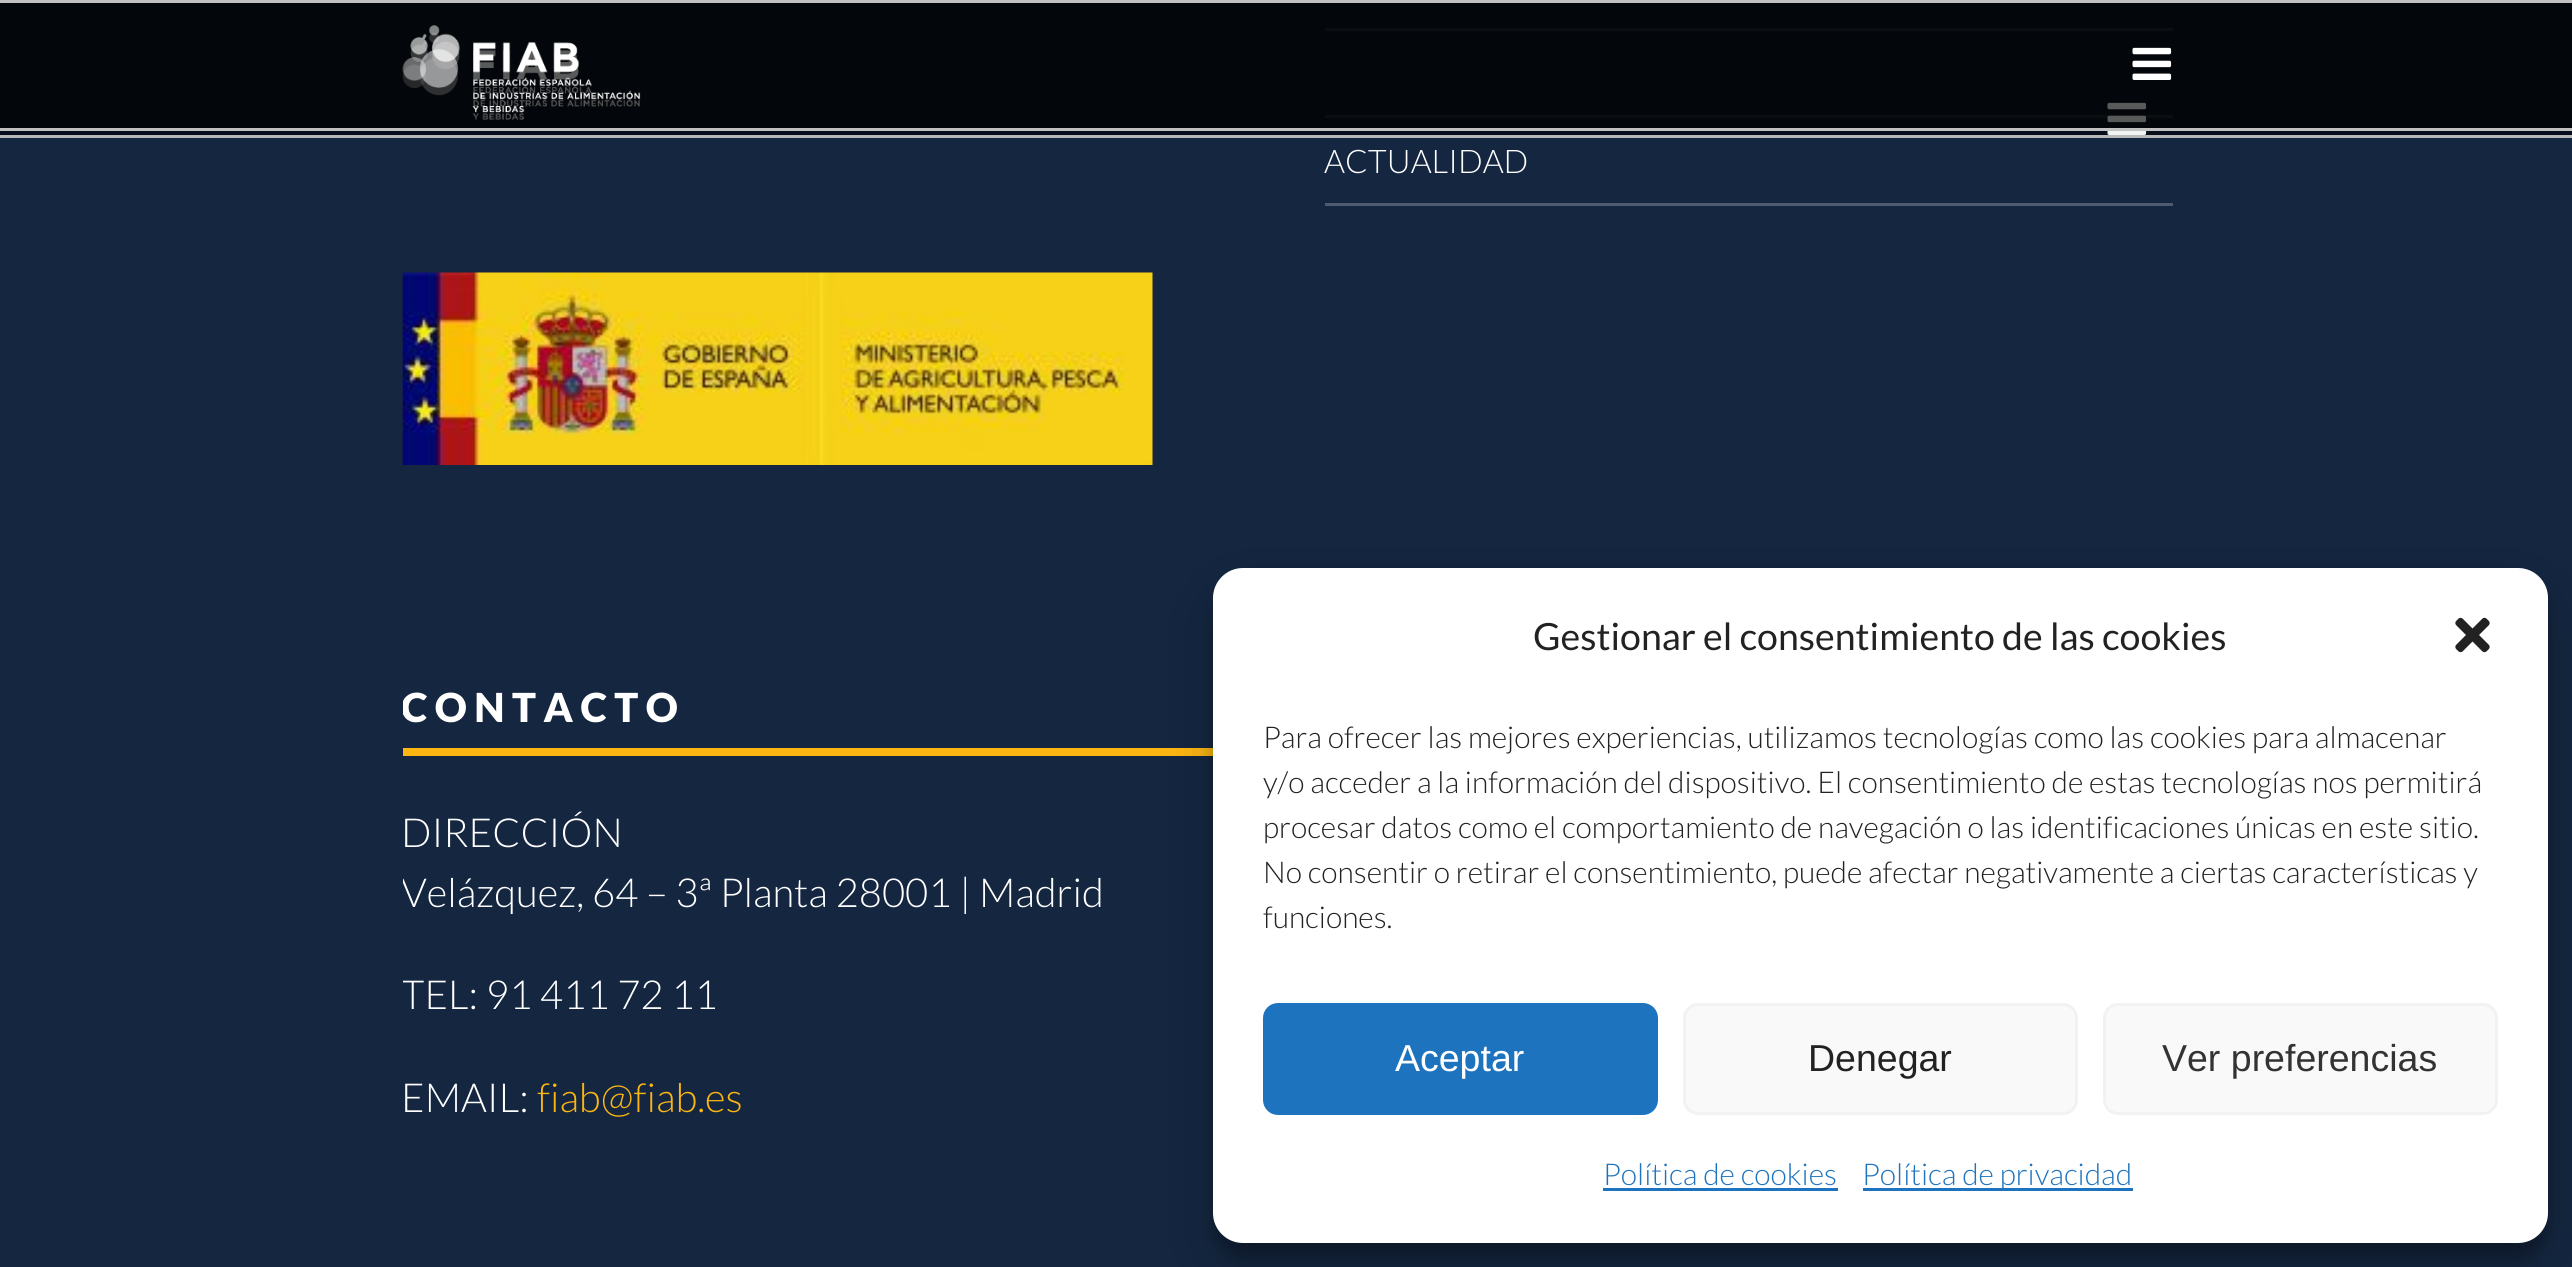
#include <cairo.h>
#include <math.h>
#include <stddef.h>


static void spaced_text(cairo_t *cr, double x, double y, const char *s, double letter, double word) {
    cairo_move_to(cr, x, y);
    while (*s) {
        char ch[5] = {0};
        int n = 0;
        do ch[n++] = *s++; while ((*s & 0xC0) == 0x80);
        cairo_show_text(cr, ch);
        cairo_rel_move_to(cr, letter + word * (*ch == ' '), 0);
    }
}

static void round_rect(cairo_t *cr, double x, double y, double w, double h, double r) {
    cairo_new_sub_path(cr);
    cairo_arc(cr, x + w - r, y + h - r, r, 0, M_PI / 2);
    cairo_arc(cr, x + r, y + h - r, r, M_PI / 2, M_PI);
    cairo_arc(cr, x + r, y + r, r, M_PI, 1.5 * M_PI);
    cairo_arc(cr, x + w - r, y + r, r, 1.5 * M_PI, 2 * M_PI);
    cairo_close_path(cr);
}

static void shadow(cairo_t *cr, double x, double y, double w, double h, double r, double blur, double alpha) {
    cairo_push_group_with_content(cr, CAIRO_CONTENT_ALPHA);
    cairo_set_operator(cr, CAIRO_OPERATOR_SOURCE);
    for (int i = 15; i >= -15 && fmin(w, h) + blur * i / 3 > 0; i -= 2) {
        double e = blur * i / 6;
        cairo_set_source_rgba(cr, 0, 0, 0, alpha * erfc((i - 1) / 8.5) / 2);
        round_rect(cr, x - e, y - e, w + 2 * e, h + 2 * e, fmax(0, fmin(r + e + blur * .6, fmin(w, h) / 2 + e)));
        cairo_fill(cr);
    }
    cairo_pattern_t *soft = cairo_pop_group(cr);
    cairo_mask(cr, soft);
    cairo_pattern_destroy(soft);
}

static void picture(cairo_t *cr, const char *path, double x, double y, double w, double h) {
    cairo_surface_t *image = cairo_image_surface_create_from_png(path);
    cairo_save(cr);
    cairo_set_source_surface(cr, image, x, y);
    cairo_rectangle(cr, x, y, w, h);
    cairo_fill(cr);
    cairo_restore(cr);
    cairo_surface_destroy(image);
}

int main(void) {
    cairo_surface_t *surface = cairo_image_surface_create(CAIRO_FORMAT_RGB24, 2572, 1267);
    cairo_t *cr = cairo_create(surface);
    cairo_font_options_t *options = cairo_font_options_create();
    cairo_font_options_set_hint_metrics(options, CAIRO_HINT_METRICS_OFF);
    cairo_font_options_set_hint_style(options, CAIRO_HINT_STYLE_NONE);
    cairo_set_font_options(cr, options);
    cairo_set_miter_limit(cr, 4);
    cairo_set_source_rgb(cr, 0.082, 0.149, 0.251);
    cairo_paint(cr);
    cairo_set_source_rgb(cr, 0.306, 0.353, 0.439);
    cairo_rectangle(cr, 1325, 28, 848, 3);
    cairo_fill(cr);
    cairo_rectangle(cr, 1325, 115, 848, 3);
    cairo_fill(cr);
    cairo_set_source_rgba(cr, 0, 0, 0, 0.6);
    cairo_rectangle(cr, 0, 3, 2572, 135);
    cairo_fill(cr);
    picture(cr, "img3.png", 402, 32, 238, 88);
    picture(cr, "img4.png", 2107, 102, 40, 33);
    cairo_set_source_rgba(cr, 0, 0, 0, 0.63);
    cairo_rectangle(cr, 0, 3, 2572, 125);
    cairo_fill(cr);
    cairo_set_source_rgb(cr, 0.757, 0.757, 0.757);
    cairo_rectangle(cr, 0, 0, 2572, 3);
    cairo_fill(cr);
    cairo_rectangle(cr, 0, 128, 2572, 3);
    cairo_fill(cr);
    picture(cr, "img1.png", 402, 25, 239, 88);
    picture(cr, "img2.png", 2132, 47, 40, 33);
    cairo_set_source_rgba(cr, 0.757, 0.757, 0.757, 0.95);
    cairo_rectangle(cr, 0, 135, 2572, 3);
    cairo_fill(cr);
    cairo_set_source_rgb(cr, 0.306, 0.353, 0.439);
    cairo_rectangle(cr, 1325, 203, 848, 3);
    cairo_fill(cr);
    cairo_select_font_face(cr, "Lato Light", CAIRO_FONT_SLANT_NORMAL, CAIRO_FONT_WEIGHT_NORMAL);
    cairo_set_font_size(cr, 32.5);
    cairo_set_source_rgb(cr, 1, 1, 1);
    cairo_move_to(cr, 1324, 173);
    cairo_show_text(cr, "ACTUALIDAD");
    picture(cr, "img5.png", 402, 272, 751, 193);
    cairo_save(cr);
    cairo_rectangle(cr, 403, 0, 1770, 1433);
    cairo_clip(cr);
    cairo_select_font_face(cr, "Lato Black", CAIRO_FONT_SLANT_NORMAL, CAIRO_FONT_WEIGHT_NORMAL);
    cairo_set_font_size(cr, 40);
    spaced_text(cr, 401, 722, "CONTACTO", 7.5, 0);
    cairo_restore(cr);
    cairo_set_source_rgb(cr, 0.988, 0.714, 0.078);
    cairo_rectangle(cr, 403, 748, 810, 8);
    cairo_fill(cr);
    cairo_set_font_size(cr, 40);
    cairo_set_source_rgb(cr, 1, 1, 1);
    cairo_move_to(cr, 401, 847);
    cairo_show_text(cr, "DIRECCIÓN");
    cairo_save(cr);
    cairo_rectangle(cr, 403, 0, 1770, 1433);
    cairo_clip(cr);
    cairo_move_to(cr, 401, 907);
    cairo_show_text(cr, "Velázquez, 64 – 3ª Planta 28001 | Madrid");
    cairo_move_to(cr, 401, 1009);
    cairo_show_text(cr, "TEL: 91 411 72 11");
    cairo_restore(cr);
    cairo_move_to(cr, 401, 1112);
    cairo_show_text(cr, "EMAIL:");
    cairo_set_source_rgb(cr, 0.988, 0.714, 0.078);
    cairo_move_to(cr, 537, 1112);
    cairo_show_text(cr, "fiab@fiab.es");
    cairo_set_source_rgb(cr, 0, 0, 0);
    shadow(cr, 1213, 583, 1335, 675, 30, 7.5, 0.23);
    shadow(cr, 1213, 593, 1335, 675, 30, 25, 0.19);
    cairo_set_source_rgb(cr, 1, 1, 1);
    round_rect(cr, 1213, 568, 1335, 675, 30);
    cairo_fill(cr);
    cairo_select_font_face(cr, "Lato", CAIRO_FONT_SLANT_NORMAL, CAIRO_FONT_WEIGHT_NORMAL);
    cairo_set_font_size(cr, 37.5);
    cairo_set_source_rgb(cr, 0.133, 0.133, 0.133);
    cairo_move_to(cr, 1533, 650);
    cairo_show_text(cr, "Gestionar el consentimiento de las cookies");
    picture(cr, "img6.png", 2455, 617, 35, 36);
    cairo_select_font_face(cr, "Lato Light", CAIRO_FONT_SLANT_NORMAL, CAIRO_FONT_WEIGHT_NORMAL);
    cairo_set_font_size(cr, 30);
    cairo_move_to(cr, 1263, 748);
    cairo_show_text(cr, "Para ofrecer las mejores experiencias, utilizamos tecnologías como las cookies para almacenar");
    cairo_move_to(cr, 1263, 793);
    cairo_show_text(cr, "y/o acceder a la información del dispositivo. El consentimiento de estas tecnologías nos permitirá");
    cairo_move_to(cr, 1263, 838);
    cairo_show_text(cr, "procesar datos como el comportamiento de navegación o las identificaciones únicas en este sitio.");
    cairo_move_to(cr, 1263, 883);
    cairo_show_text(cr, "No consentir o retirar el consentimiento, puede afectar negativamente a ciertas características y");
    cairo_move_to(cr, 1263, 928);
    cairo_show_text(cr, "funciones.");
    cairo_set_source_rgb(cr, 0.118, 0.451, 0.745);
    round_rect(cr, 1264.5, 1004.5, 392, 109, 13.5);
    cairo_fill_preserve(cr);
    cairo_set_line_width(cr, 3);
    cairo_stroke(cr);
    cairo_select_font_face(cr, "Liberation Sans", CAIRO_FONT_SLANT_NORMAL, CAIRO_FONT_WEIGHT_NORMAL);
    cairo_set_font_size(cr, 37.5);
    cairo_set_source_rgb(cr, 1, 1, 1);
    cairo_move_to(cr, 1395, 1071);
    cairo_show_text(cr, "Aceptar");
    cairo_set_source_rgb(cr, 0.976, 0.976, 0.976);
    round_rect(cr, 1684.5, 1004.5, 392, 109, 13.5);
    cairo_fill_preserve(cr);
    cairo_set_source_rgb(cr, 0.949, 0.949, 0.949);
    cairo_stroke(cr);
    cairo_set_source_rgb(cr, 0.133, 0.133, 0.133);
    cairo_move_to(cr, 1808, 1071);
    cairo_show_text(cr, "Denegar");
    cairo_set_source_rgb(cr, 0.976, 0.976, 0.976);
    round_rect(cr, 2104.5, 1004.5, 392, 109, 13.5);
    cairo_fill_preserve(cr);
    cairo_set_source_rgb(cr, 0.949, 0.949, 0.949);
    cairo_stroke(cr);
    cairo_set_source_rgb(cr, 0.2, 0.2, 0.2);
    cairo_move_to(cr, 2162, 1071);
    cairo_show_text(cr, "Ver preferencias");
    cairo_select_font_face(cr, "Lato Light", CAIRO_FONT_SLANT_NORMAL, CAIRO_FONT_WEIGHT_NORMAL);
    cairo_set_font_size(cr, 30);
    cairo_set_source_rgb(cr, 0.118, 0.451, 0.745);
    cairo_move_to(cr, 1603, 1185);
    cairo_show_text(cr, "Política de cookies");
    cairo_rectangle(cr, 1603, 1188, 235, 3);
    cairo_fill(cr);
    cairo_rectangle(cr, 1863, 1188, 270, 3);
    cairo_fill(cr);
    cairo_move_to(cr, 1862, 1185);
    cairo_show_text(cr, "Política de privacidad");
    cairo_surface_write_to_png(surface, "page.png");
    cairo_font_options_destroy(options);
    cairo_destroy(cr);
    cairo_surface_destroy(surface);
    return 0;
}
